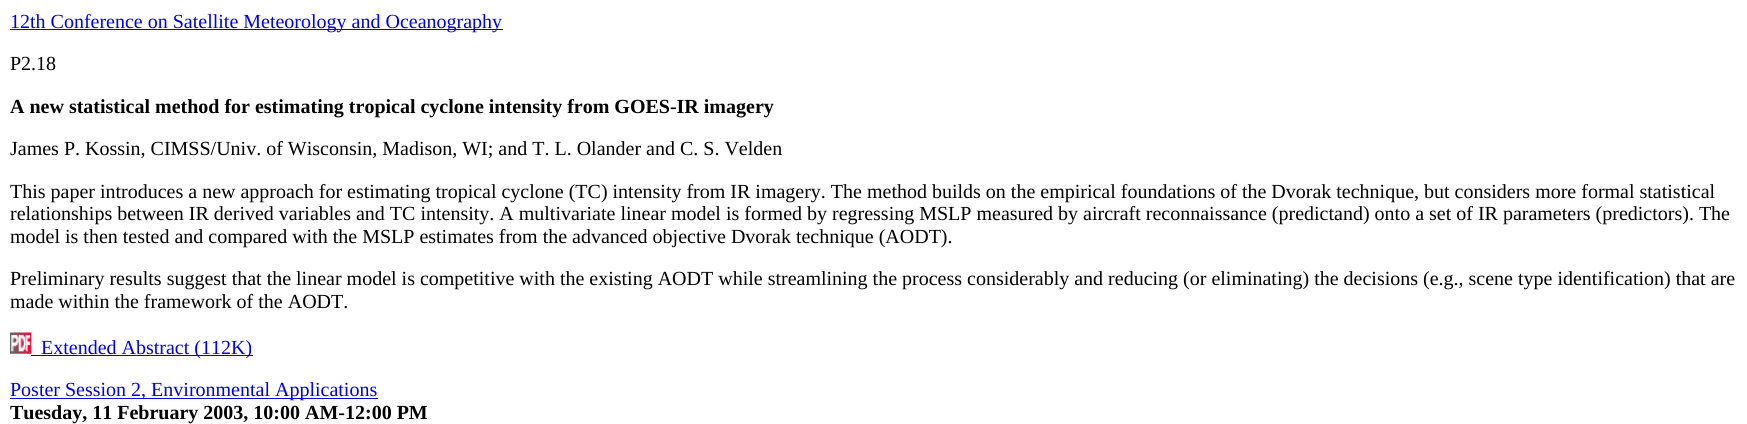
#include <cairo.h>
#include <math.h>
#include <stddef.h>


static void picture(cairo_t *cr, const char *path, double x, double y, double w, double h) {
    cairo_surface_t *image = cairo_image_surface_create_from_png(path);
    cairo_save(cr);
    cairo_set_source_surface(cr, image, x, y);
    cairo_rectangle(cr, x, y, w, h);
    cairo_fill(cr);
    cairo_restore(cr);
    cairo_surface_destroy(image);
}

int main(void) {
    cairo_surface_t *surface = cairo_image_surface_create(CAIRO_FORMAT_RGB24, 1747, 424);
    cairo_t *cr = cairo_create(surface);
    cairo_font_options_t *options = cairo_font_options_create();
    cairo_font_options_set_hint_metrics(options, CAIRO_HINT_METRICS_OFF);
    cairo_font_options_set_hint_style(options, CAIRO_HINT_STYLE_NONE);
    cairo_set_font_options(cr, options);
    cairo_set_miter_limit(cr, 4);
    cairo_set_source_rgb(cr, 1, 1, 1);
    cairo_paint(cr);
    cairo_set_source_rgb(cr, 0, 0, 0.933);
    cairo_rectangle(cr, 10, 29, 493, 1);
    cairo_fill(cr);
    cairo_select_font_face(cr, "Liberation Serif", CAIRO_FONT_SLANT_NORMAL, CAIRO_FONT_WEIGHT_NORMAL);
    cairo_set_font_size(cr, 20);
    cairo_move_to(cr, 10, 28);
    cairo_show_text(cr, "12th Conference on Satellite Meteorology and Oceanography");
    cairo_set_source_rgb(cr, 0, 0, 0);
    cairo_move_to(cr, 10, 70);
    cairo_show_text(cr, "P2.18");
    cairo_select_font_face(cr, "Liberation Serif", CAIRO_FONT_SLANT_NORMAL, CAIRO_FONT_WEIGHT_BOLD);
    cairo_move_to(cr, 10, 113);
    cairo_show_text(cr, "A new statistical method for estimating tropical cyclone intensity from GOES-IR imagery");
    cairo_select_font_face(cr, "Liberation Serif", CAIRO_FONT_SLANT_NORMAL, CAIRO_FONT_WEIGHT_NORMAL);
    cairo_move_to(cr, 10, 155);
    cairo_show_text(cr, "James P. Kossin, CIMSS/Univ. of Wisconsin, Madison, WI; and T. L. Olander and C. S. Velden");
    cairo_move_to(cr, 10, 198);
    cairo_show_text(cr, "This paper introduces a new approach for estimating tropical cyclone (TC) intensity from IR imagery. The method builds on the empirical foundations of the Dvorak technique, but considers more formal statistical");
    cairo_move_to(cr, 10, 220);
    cairo_show_text(cr, "relationships between IR derived variables and TC intensity. A multivariate linear model is formed by regressing MSLP measured by aircraft reconnaissance (predictand) onto a set of IR parameters (predictors). The");
    cairo_move_to(cr, 10, 243);
    cairo_show_text(cr, "model is then tested and compared with the MSLP estimates from the advanced objective Dvorak technique (AODT).");
    cairo_move_to(cr, 10, 285);
    cairo_show_text(cr, "Preliminary results suggest that the linear model is competitive with the existing AODT while streamlining the process considerably and reducing (or eliminating) the decisions (e.g., scene type identification) that are");
    cairo_move_to(cr, 10, 308);
    cairo_show_text(cr, "made within the framework of the AODT.");
    picture(cr, "img1.png", 10, 332, 22, 22);
    cairo_set_source_rgb(cr, 0, 0, 0.933);
    cairo_rectangle(cr, 31, 355, 222, 1);
    cairo_fill(cr);
    cairo_move_to(cr, 41, 354);
    cairo_show_text(cr, "Extended Abstract (112K)");
    cairo_rectangle(cr, 10, 398, 368, 1);
    cairo_fill(cr);
    cairo_move_to(cr, 10, 396);
    cairo_show_text(cr, "Poster Session 2, Environmental Applications");
    cairo_select_font_face(cr, "Liberation Serif", CAIRO_FONT_SLANT_NORMAL, CAIRO_FONT_WEIGHT_BOLD);
    cairo_set_source_rgb(cr, 0, 0, 0);
    cairo_move_to(cr, 10, 419);
    cairo_show_text(cr, "Tuesday, 11 February 2003, 10:00 AM-12:00 PM");
    cairo_surface_write_to_png(surface, "page.png");
    cairo_font_options_destroy(options);
    cairo_destroy(cr);
    cairo_surface_destroy(surface);
    return 0;
}
